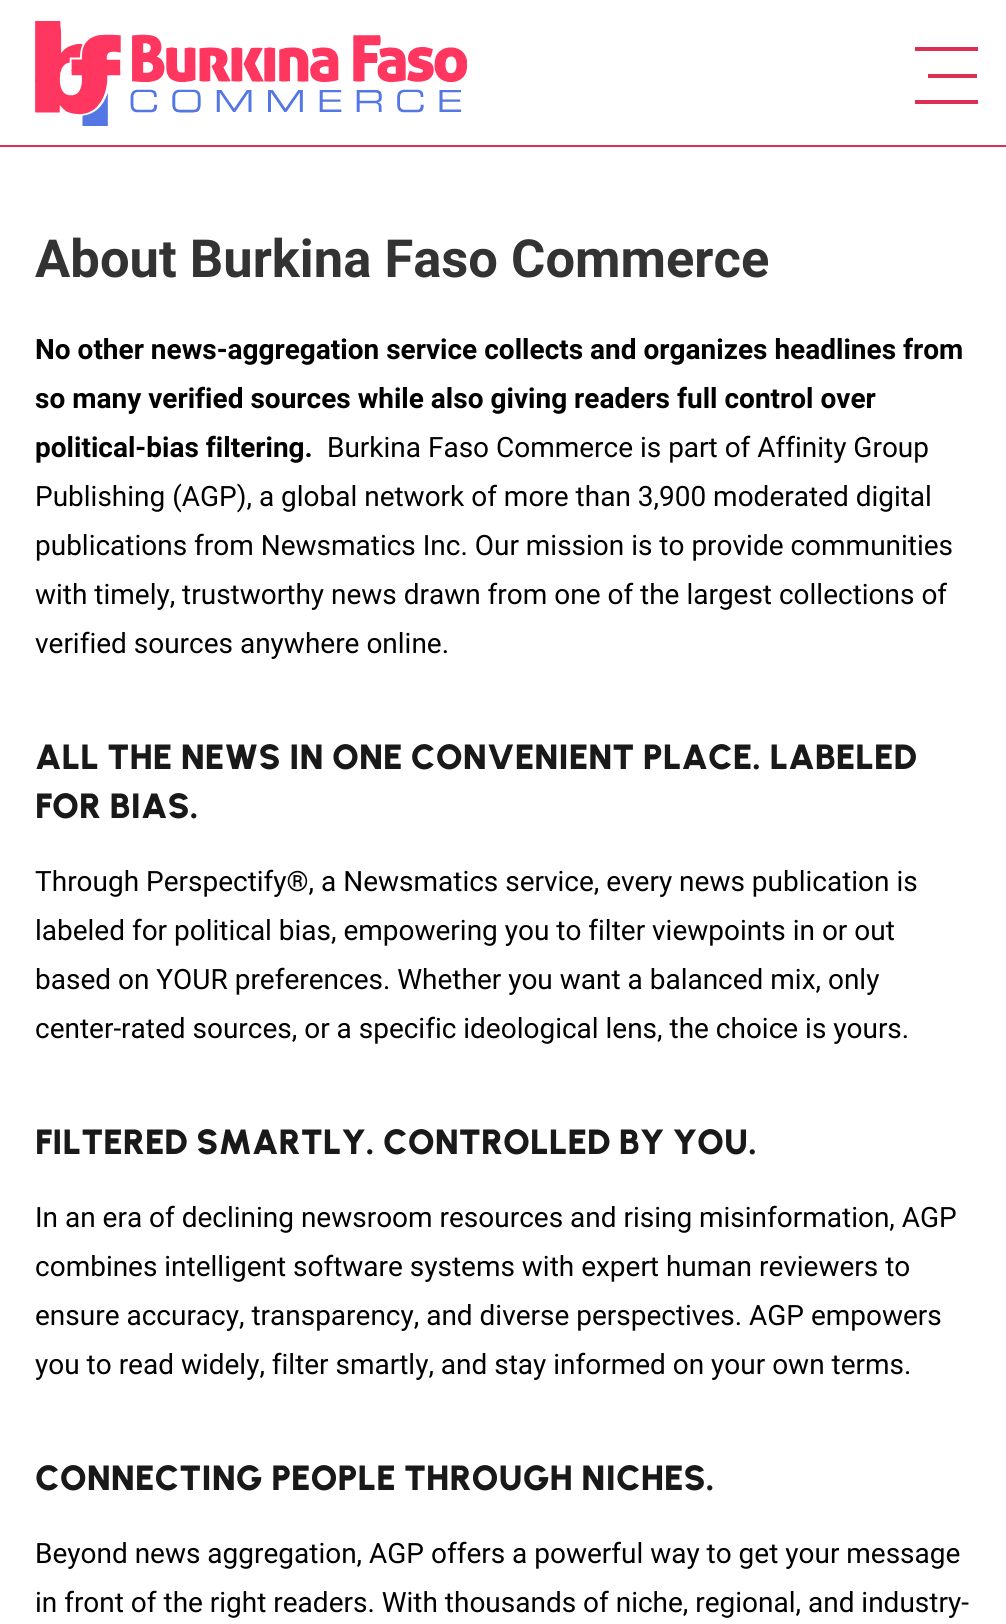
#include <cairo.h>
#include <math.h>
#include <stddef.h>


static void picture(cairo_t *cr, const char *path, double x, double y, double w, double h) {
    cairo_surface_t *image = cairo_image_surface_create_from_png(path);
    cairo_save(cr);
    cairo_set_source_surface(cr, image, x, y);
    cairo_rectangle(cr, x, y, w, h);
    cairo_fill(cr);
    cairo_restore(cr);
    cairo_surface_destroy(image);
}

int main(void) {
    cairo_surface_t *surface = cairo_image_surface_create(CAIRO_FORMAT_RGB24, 1006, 1624);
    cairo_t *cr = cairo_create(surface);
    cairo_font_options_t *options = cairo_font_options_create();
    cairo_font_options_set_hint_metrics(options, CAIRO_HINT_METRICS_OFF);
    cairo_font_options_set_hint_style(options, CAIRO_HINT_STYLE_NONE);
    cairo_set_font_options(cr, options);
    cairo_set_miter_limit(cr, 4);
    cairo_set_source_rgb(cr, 1, 1, 1);
    cairo_paint(cr);
    picture(cr, "img1.png", 35, 21, 432, 105);
    cairo_set_source_rgb(cr, 0.867, 0.184, 0.325);
    cairo_rectangle(cr, 915, 47, 63, 4);
    cairo_fill(cr);
    cairo_rectangle(cr, 928, 74, 49, 4);
    cairo_fill(cr);
    cairo_rectangle(cr, 915, 100, 63, 4);
    cairo_fill(cr);
    cairo_rectangle(cr, 0, 145, 1006, 2);
    cairo_fill(cr);
    cairo_select_font_face(cr, "Roboto", CAIRO_FONT_SLANT_NORMAL, CAIRO_FONT_WEIGHT_BOLD);
    cairo_set_font_size(cr, 52.5);
    cairo_set_source_rgb(cr, 0.2, 0.2, 0.2);
    cairo_move_to(cr, 35, 277);
    cairo_show_text(cr, "About Burkina Faso Commerce");
    cairo_set_font_size(cr, 28);
    cairo_set_source_rgb(cr, 0, 0, 0);
    cairo_move_to(cr, 35, 359);
    cairo_show_text(cr, "No other news-aggregation service collects and organizes headlines from");
    cairo_move_to(cr, 35, 408);
    cairo_show_text(cr, "so many verified sources while also giving readers full control over");
    cairo_move_to(cr, 35, 457);
    cairo_show_text(cr, "political-bias filtering.");
    cairo_select_font_face(cr, "Roboto", CAIRO_FONT_SLANT_NORMAL, CAIRO_FONT_WEIGHT_NORMAL);
    cairo_move_to(cr, 327, 457);
    cairo_show_text(cr, "Burkina Faso Commerce is part of Affinity Group");
    cairo_move_to(cr, 35, 506);
    cairo_show_text(cr, "Publishing (AGP), a global network of more than 3,900 moderated digital");
    cairo_move_to(cr, 35, 555);
    cairo_show_text(cr, "publications from Newsmatics Inc. Our mission is to provide communities");
    cairo_move_to(cr, 35, 604);
    cairo_show_text(cr, "with timely, trustworthy news drawn from one of the largest collections of");
    cairo_move_to(cr, 35, 653);
    cairo_show_text(cr, "verified sources anywhere online.");
    cairo_select_font_face(cr, "Urbanist Black", CAIRO_FONT_SLANT_NORMAL, CAIRO_FONT_WEIGHT_NORMAL);
    cairo_set_font_size(cr, 35);
    cairo_set_source_rgb(cr, 0.098, 0.098, 0.098);
    cairo_move_to(cr, 35, 769);
    cairo_show_text(cr, "ALL THE NEWS IN ONE CONVENIENT PLACE. LABELED");
    cairo_move_to(cr, 35, 818);
    cairo_show_text(cr, "FOR BIAS.");
    cairo_select_font_face(cr, "Roboto", CAIRO_FONT_SLANT_NORMAL, CAIRO_FONT_WEIGHT_NORMAL);
    cairo_set_font_size(cr, 28);
    cairo_set_source_rgb(cr, 0, 0, 0);
    cairo_move_to(cr, 35, 891);
    cairo_show_text(cr, "Through Perspectify®, a Newsmatics service, every news publication is");
    cairo_move_to(cr, 35, 940);
    cairo_show_text(cr, "labeled for political bias, empowering you to filter viewpoints in or out");
    cairo_move_to(cr, 35, 989);
    cairo_show_text(cr, "based on YOUR preferences. Whether you want a balanced mix, only");
    cairo_move_to(cr, 35, 1038);
    cairo_show_text(cr, "center-rated sources, or a specific ideological lens, the choice is yours.");
    cairo_select_font_face(cr, "Urbanist Black", CAIRO_FONT_SLANT_NORMAL, CAIRO_FONT_WEIGHT_NORMAL);
    cairo_set_font_size(cr, 35);
    cairo_set_source_rgb(cr, 0.098, 0.098, 0.098);
    cairo_move_to(cr, 35, 1154);
    cairo_show_text(cr, "FILTERED SMARTLY. CONTROLLED BY YOU.");
    cairo_select_font_face(cr, "Roboto", CAIRO_FONT_SLANT_NORMAL, CAIRO_FONT_WEIGHT_NORMAL);
    cairo_set_font_size(cr, 28);
    cairo_set_source_rgb(cr, 0, 0, 0);
    cairo_move_to(cr, 35, 1227);
    cairo_show_text(cr, "In an era of declining newsroom resources and rising misinformation, AGP");
    cairo_move_to(cr, 35, 1276);
    cairo_show_text(cr, "combines intelligent software systems with expert human reviewers to");
    cairo_move_to(cr, 35, 1325);
    cairo_show_text(cr, "ensure accuracy, transparency, and diverse perspectives. AGP empowers");
    cairo_move_to(cr, 35, 1374);
    cairo_show_text(cr, "you to read widely, filter smartly, and stay informed on your own terms.");
    cairo_select_font_face(cr, "Urbanist Black", CAIRO_FONT_SLANT_NORMAL, CAIRO_FONT_WEIGHT_NORMAL);
    cairo_set_font_size(cr, 35);
    cairo_set_source_rgb(cr, 0.098, 0.098, 0.098);
    cairo_move_to(cr, 35, 1490);
    cairo_show_text(cr, "CONNECTING PEOPLE THROUGH NICHES.");
    cairo_select_font_face(cr, "Roboto", CAIRO_FONT_SLANT_NORMAL, CAIRO_FONT_WEIGHT_NORMAL);
    cairo_set_font_size(cr, 28);
    cairo_set_source_rgb(cr, 0, 0, 0);
    cairo_move_to(cr, 35, 1563);
    cairo_show_text(cr, "Beyond news aggregation, AGP offers a powerful way to get your message");
    cairo_move_to(cr, 35, 1612);
    cairo_show_text(cr, "in front of the right readers. With thousands of niche, regional, and industry-");
    cairo_surface_write_to_png(surface, "page.png");
    cairo_font_options_destroy(options);
    cairo_destroy(cr);
    cairo_surface_destroy(surface);
    return 0;
}
